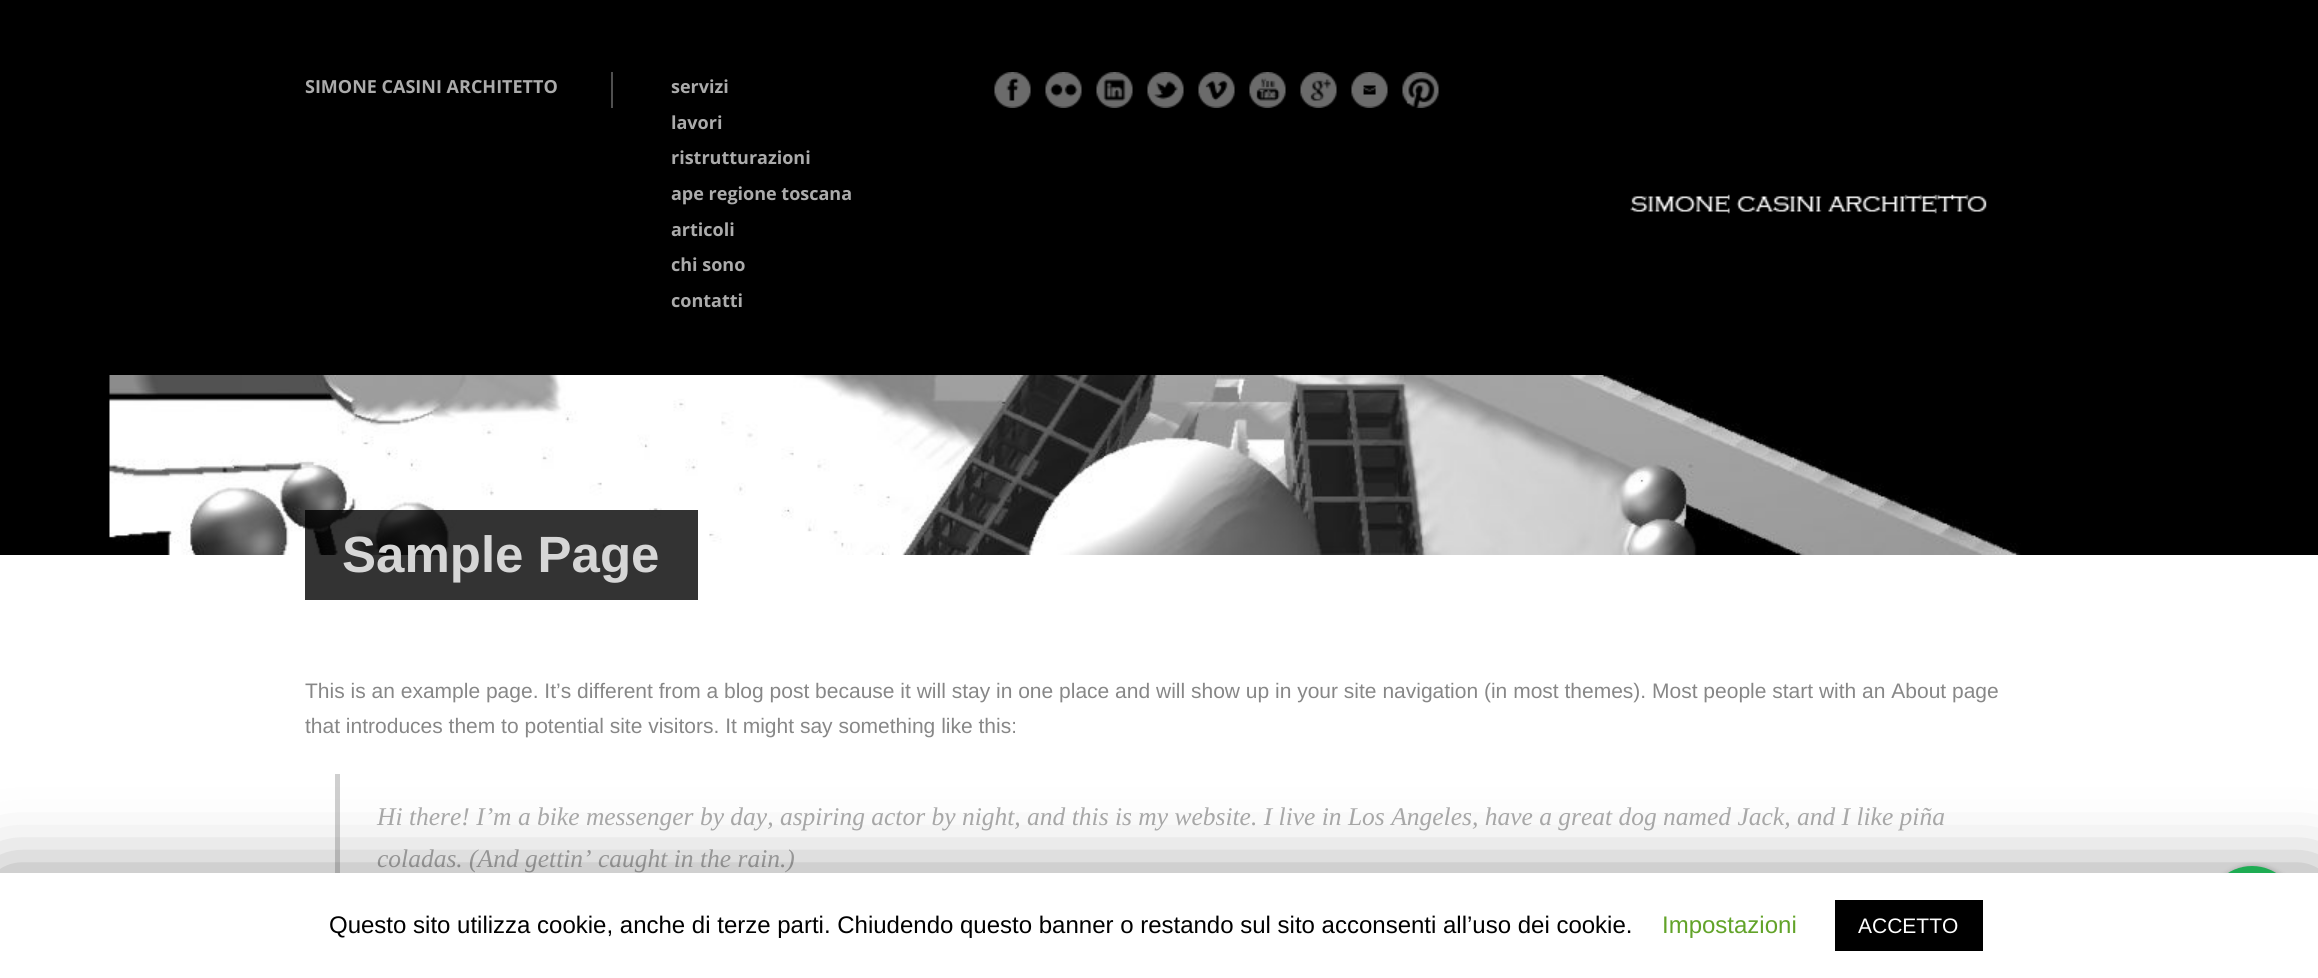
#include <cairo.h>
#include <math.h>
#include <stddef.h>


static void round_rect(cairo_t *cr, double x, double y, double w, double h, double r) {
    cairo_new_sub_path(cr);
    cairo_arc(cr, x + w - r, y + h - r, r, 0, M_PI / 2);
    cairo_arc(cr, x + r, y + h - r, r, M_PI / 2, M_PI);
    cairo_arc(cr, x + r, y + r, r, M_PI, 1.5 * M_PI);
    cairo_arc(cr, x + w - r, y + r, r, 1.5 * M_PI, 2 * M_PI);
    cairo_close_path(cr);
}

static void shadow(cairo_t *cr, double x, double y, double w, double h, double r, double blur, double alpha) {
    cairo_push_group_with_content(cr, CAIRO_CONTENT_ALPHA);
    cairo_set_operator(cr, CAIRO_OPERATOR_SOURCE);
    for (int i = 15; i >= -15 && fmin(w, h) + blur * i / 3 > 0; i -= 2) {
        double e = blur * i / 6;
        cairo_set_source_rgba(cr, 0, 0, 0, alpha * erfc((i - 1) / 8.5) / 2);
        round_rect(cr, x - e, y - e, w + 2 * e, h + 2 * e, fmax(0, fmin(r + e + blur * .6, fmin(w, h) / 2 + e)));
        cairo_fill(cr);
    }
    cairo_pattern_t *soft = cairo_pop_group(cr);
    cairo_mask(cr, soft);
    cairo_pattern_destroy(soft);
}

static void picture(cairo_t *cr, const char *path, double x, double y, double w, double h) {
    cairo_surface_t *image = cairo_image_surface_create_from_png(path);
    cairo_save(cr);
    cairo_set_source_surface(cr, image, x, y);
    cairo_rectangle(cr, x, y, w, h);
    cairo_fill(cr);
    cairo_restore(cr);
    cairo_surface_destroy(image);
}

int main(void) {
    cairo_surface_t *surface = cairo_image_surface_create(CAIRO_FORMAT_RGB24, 2318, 978);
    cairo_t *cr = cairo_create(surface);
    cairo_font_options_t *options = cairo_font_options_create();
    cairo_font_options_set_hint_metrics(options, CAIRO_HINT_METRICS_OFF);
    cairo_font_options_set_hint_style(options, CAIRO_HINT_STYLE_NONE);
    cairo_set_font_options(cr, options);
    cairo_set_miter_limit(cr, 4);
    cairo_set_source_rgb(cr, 1, 1, 1);
    cairo_paint(cr);
    cairo_set_source_rgb(cr, 0, 0, 0);
    cairo_rectangle(cr, 0, 0, 2318, 555);
    cairo_fill(cr);
    cairo_set_source_rgb(cr, 0.31, 0.31, 0.31);
    cairo_rectangle(cr, 611, 72, 2, 36);
    cairo_fill(cr);
    cairo_select_font_face(cr, "Open Sans", CAIRO_FONT_SLANT_NORMAL, CAIRO_FONT_WEIGHT_BOLD);
    cairo_set_font_size(cr, 18);
    cairo_set_source_rgb(cr, 0.671, 0.671, 0.671);
    cairo_move_to(cr, 305, 93);
    cairo_show_text(cr, "SIMONE CASINI ARCHITETTO");
    cairo_move_to(cr, 671, 93);
    cairo_show_text(cr, "servizi");
    cairo_move_to(cr, 671, 129);
    cairo_show_text(cr, "lavori");
    cairo_move_to(cr, 671, 164);
    cairo_show_text(cr, "ristrutturazioni");
    cairo_move_to(cr, 671, 200);
    cairo_show_text(cr, "ape regione toscana");
    cairo_move_to(cr, 671, 236);
    cairo_show_text(cr, "articoli");
    cairo_move_to(cr, 671, 271);
    cairo_show_text(cr, "chi sono");
    cairo_move_to(cr, 671, 307);
    cairo_show_text(cr, "contatti");
    picture(cr, "img1.png", 994, 72, 37, 36);
    picture(cr, "img2.png", 1045, 72, 37, 36);
    picture(cr, "img3.png", 1096, 72, 37, 36);
    picture(cr, "img4.png", 1147, 72, 37, 36);
    picture(cr, "img5.png", 1198, 72, 37, 36);
    picture(cr, "img6.png", 1249, 72, 37, 36);
    picture(cr, "img7.png", 1300, 72, 37, 36);
    picture(cr, "img8.png", 1351, 72, 37, 36);
    picture(cr, "img9.png", 1402, 72, 37, 36);
    picture(cr, "img10.png", 1630, 194, 357, 20);
    picture(cr, "img11.png", 109, 375, 1912, 180);
    cairo_set_source_rgba(cr, 0, 0, 0, 0.8);
    cairo_rectangle(cr, 305, 510, 393, 90);
    cairo_fill(cr);
    cairo_select_font_face(cr, "Liberation Sans", CAIRO_FONT_SLANT_NORMAL, CAIRO_FONT_WEIGHT_BOLD);
    cairo_set_font_size(cr, 51);
    cairo_set_source_rgb(cr, 0.839, 0.839, 0.839);
    cairo_move_to(cr, 342, 572);
    cairo_show_text(cr, "Sample Page");
    cairo_select_font_face(cr, "Liberation Sans", CAIRO_FONT_SLANT_NORMAL, CAIRO_FONT_WEIGHT_NORMAL);
    cairo_set_font_size(cr, 21);
    cairo_set_source_rgb(cr, 0.529, 0.529, 0.529);
    cairo_move_to(cr, 305, 698);
    cairo_show_text(cr, "This is an example page. It’s different from a blog post because it will stay in one place and will show up in your site navigation (in most themes). Most people start with an About page");
    cairo_move_to(cr, 305, 733);
    cairo_show_text(cr, "that introduces them to potential site visitors. It might say something like this:");
    cairo_set_source_rgb(cr, 0.812, 0.812, 0.812);
    cairo_rectangle(cr, 335, 774, 5, 99);
    cairo_fill(cr);
    cairo_select_font_face(cr, "Liberation Serif", CAIRO_FONT_SLANT_ITALIC, CAIRO_FONT_WEIGHT_NORMAL);
    cairo_set_font_size(cr, 25.5);
    cairo_set_source_rgb(cr, 0.671, 0.671, 0.671);
    cairo_move_to(cr, 377, 825);
    cairo_show_text(cr, "Hi there! I’m a bike messenger by day, aspiring actor by night, and this is my website. I live in Los Angeles, have a great dog named Jack, and I like piña");
    cairo_move_to(cr, 377, 867);
    cairo_show_text(cr, "coladas. (And gettin’ caught in the rain.)");
    cairo_set_source_rgb(cr, 0, 0, 0);
    shadow(cr, 2208, 867, 90, 90, 45, 3, 0.3);
    cairo_set_source_rgb(cr, 0.145, 0.827, 0.4);
    cairo_arc(cr, 2252, 911, 45, 0, 2 * M_PI);
    cairo_fill(cr);
    cairo_set_source_rgb(cr, 0, 0, 0);
    shadow(cr, 0, 881, 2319, 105, 0, 37.5, 0.5);
    cairo_set_source_rgb(cr, 1, 1, 1);
    cairo_rectangle(cr, 0, 873, 2318, 105);
    cairo_fill(cr);
    cairo_select_font_face(cr, "Liberation Sans", CAIRO_FONT_SLANT_NORMAL, CAIRO_FONT_WEIGHT_NORMAL);
    cairo_set_font_size(cr, 24);
    cairo_set_source_rgb(cr, 0, 0, 0);
    cairo_move_to(cr, 329, 933);
    cairo_show_text(cr, "Questo sito utilizza cookie, anche di terze parti. Chiudendo questo banner o restando sul sito acconsenti all’uso dei cookie.");
    cairo_set_source_rgb(cr, 0.384, 0.639, 0.161);
    cairo_move_to(cr, 1662, 933);
    cairo_show_text(cr, "Impostazioni");
    cairo_set_source_rgb(cr, 0, 0, 0);
    cairo_rectangle(cr, 1835, 900, 148, 51);
    cairo_fill(cr);
    cairo_set_font_size(cr, 21);
    cairo_set_source_rgb(cr, 1, 1, 1);
    cairo_move_to(cr, 1858, 933);
    cairo_show_text(cr, "ACCETTO");
    cairo_surface_write_to_png(surface, "page.png");
    cairo_font_options_destroy(options);
    cairo_destroy(cr);
    cairo_surface_destroy(surface);
    return 0;
}
